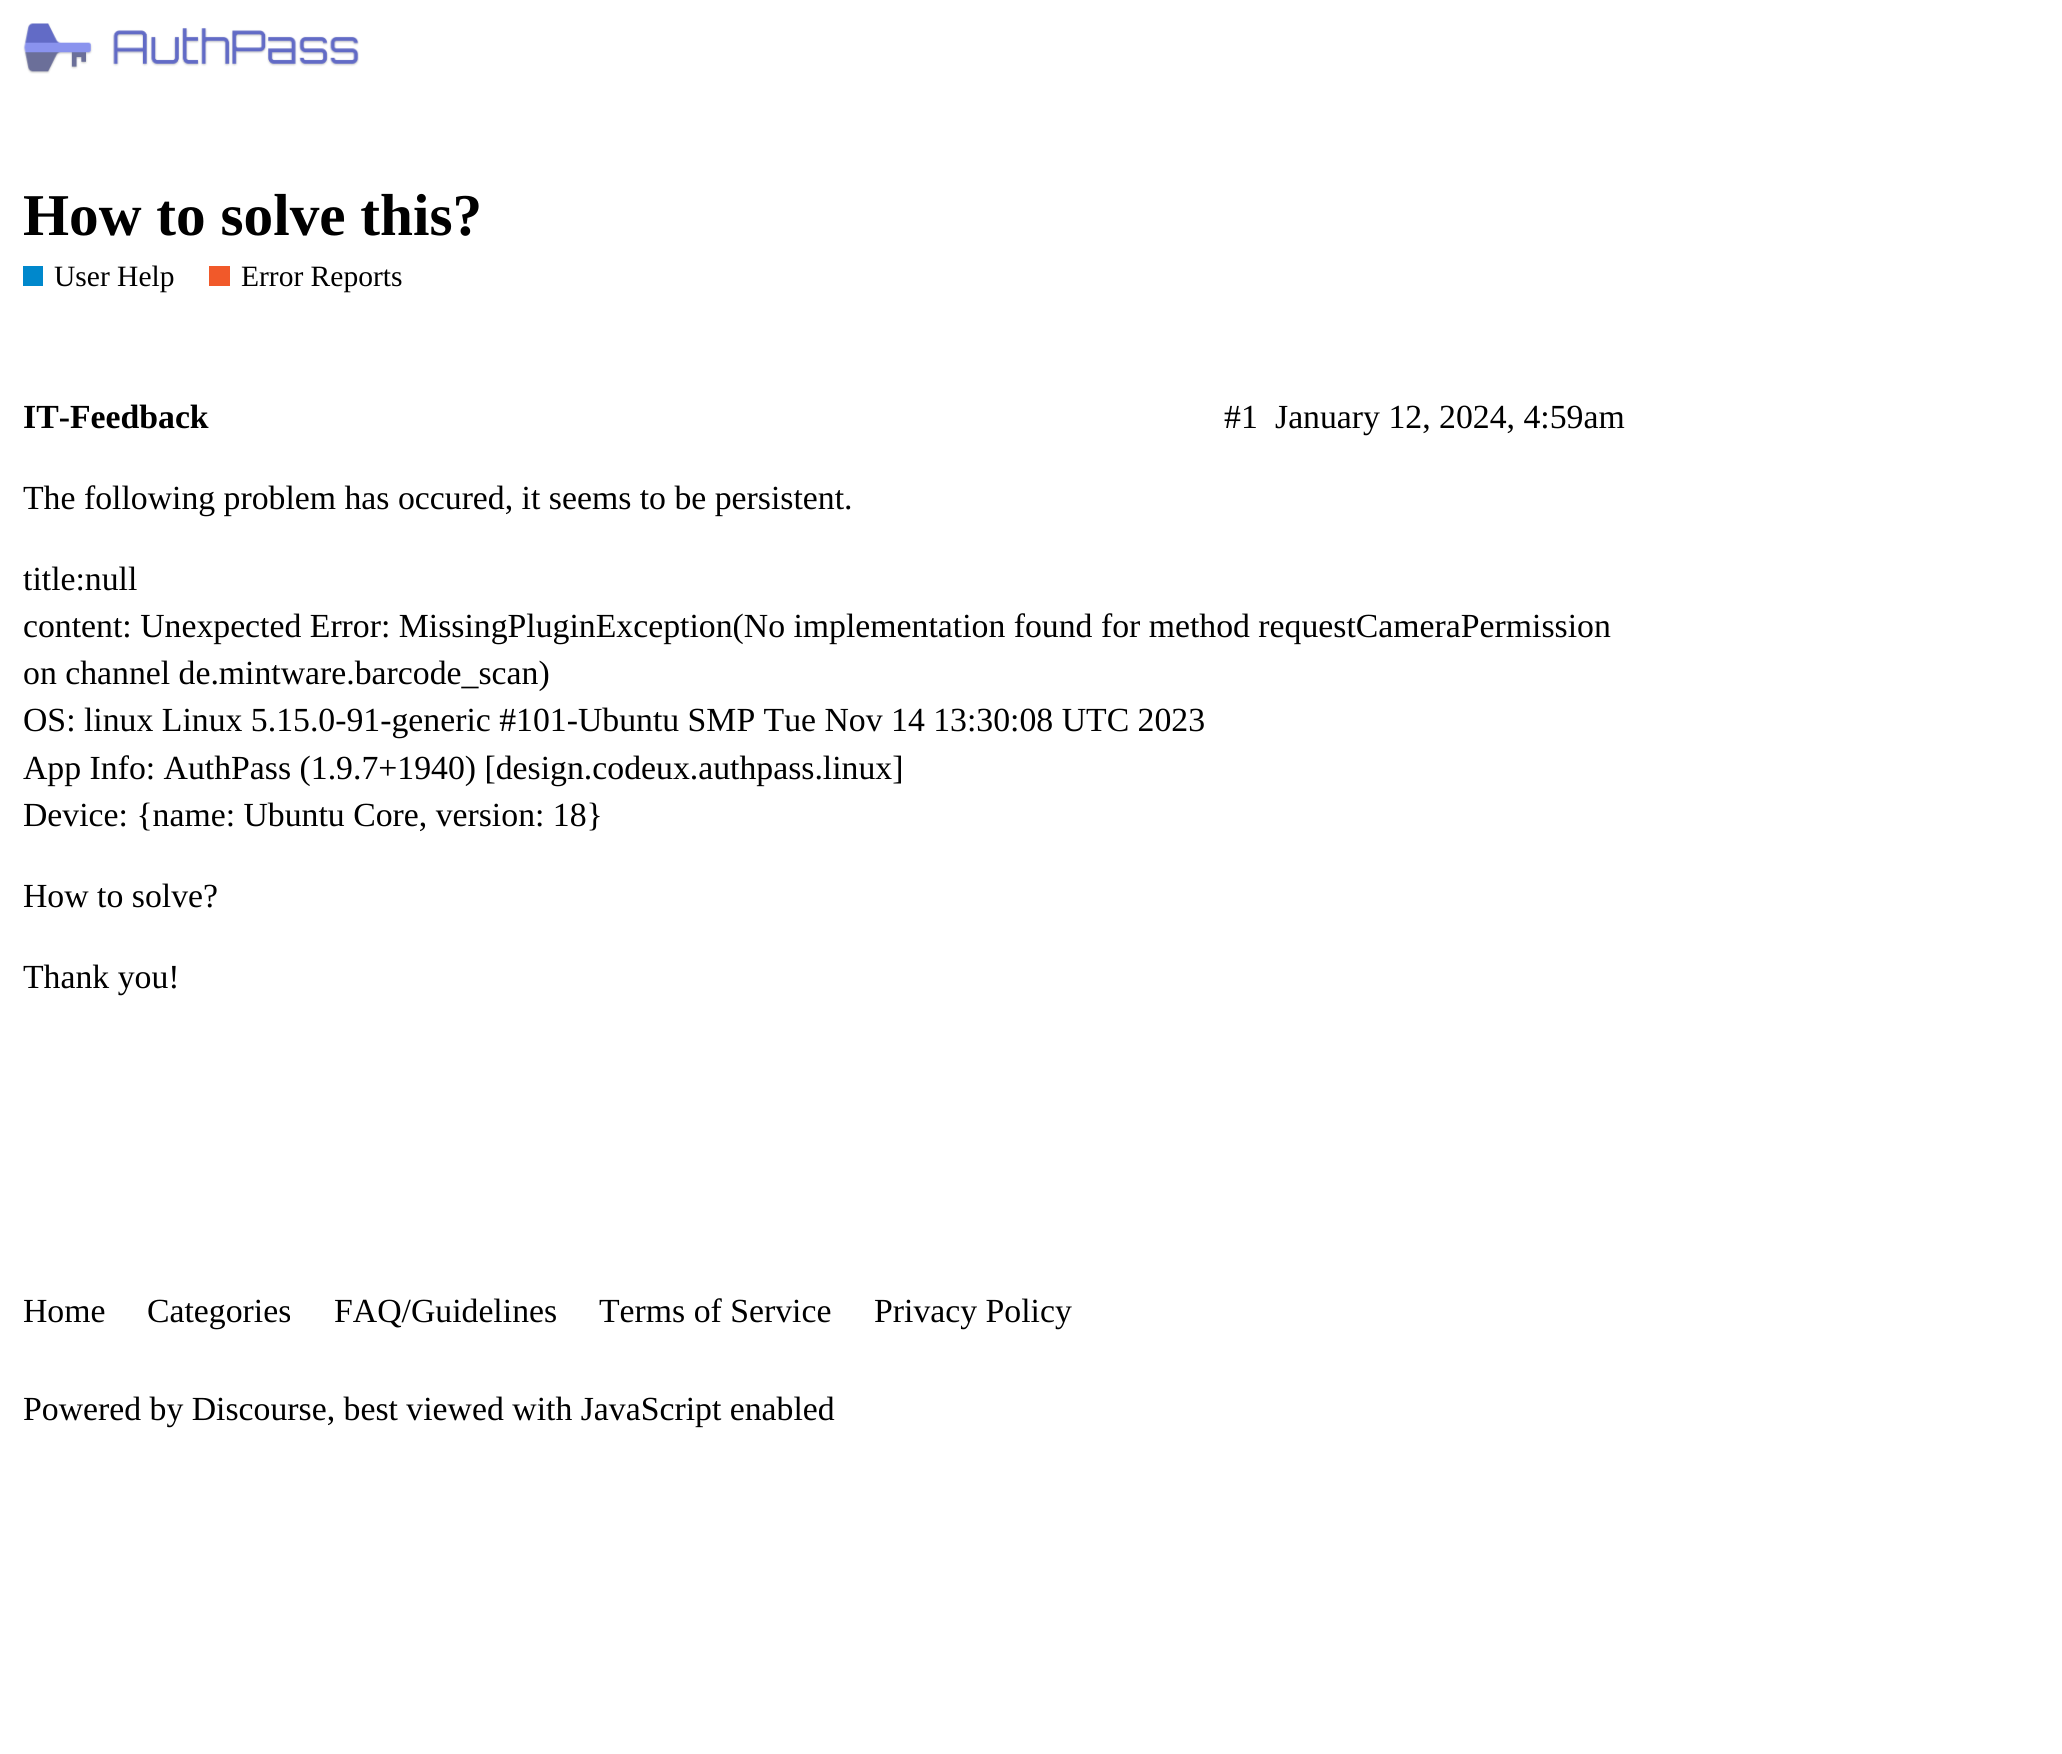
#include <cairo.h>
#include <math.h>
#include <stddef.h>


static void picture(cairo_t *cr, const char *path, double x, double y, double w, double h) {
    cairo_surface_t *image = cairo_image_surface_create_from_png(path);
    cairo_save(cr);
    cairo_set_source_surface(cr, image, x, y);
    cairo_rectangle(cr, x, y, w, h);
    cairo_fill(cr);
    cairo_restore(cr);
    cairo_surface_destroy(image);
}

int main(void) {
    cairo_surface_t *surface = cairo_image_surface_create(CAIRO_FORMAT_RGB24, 2062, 1754);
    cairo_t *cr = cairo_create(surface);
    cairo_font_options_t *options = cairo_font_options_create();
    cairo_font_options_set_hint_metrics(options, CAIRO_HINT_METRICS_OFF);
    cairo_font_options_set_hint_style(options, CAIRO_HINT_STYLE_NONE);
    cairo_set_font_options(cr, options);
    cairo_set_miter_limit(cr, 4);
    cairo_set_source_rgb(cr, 1, 1, 1);
    cairo_paint(cr);
    picture(cr, "img1.png", 23, 23, 336, 51);
    cairo_select_font_face(cr, "Liberation Serif", CAIRO_FONT_SLANT_NORMAL, CAIRO_FONT_WEIGHT_BOLD);
    cairo_set_font_size(cr, 59.25);
    cairo_set_source_rgb(cr, 0, 0, 0);
    cairo_move_to(cr, 23, 235);
    cairo_show_text(cr, "How to solve this?");
    cairo_set_source_rgb(cr, 0, 0.533, 0.8);
    cairo_rectangle(cr, 23, 266, 20, 20);
    cairo_fill(cr);
    cairo_select_font_face(cr, "Liberation Serif", CAIRO_FONT_SLANT_NORMAL, CAIRO_FONT_WEIGHT_NORMAL);
    cairo_set_font_size(cr, 29.5);
    cairo_set_source_rgb(cr, 0, 0, 0);
    cairo_move_to(cr, 54, 286);
    cairo_show_text(cr, "User Help");
    cairo_set_source_rgb(cr, 0.945, 0.349, 0.165);
    cairo_rectangle(cr, 209, 266, 21, 20);
    cairo_fill(cr);
    cairo_set_source_rgb(cr, 0, 0, 0);
    cairo_move_to(cr, 241, 286);
    cairo_show_text(cr, "Error Reports");
    cairo_select_font_face(cr, "Liberation Serif", CAIRO_FONT_SLANT_NORMAL, CAIRO_FONT_WEIGHT_BOLD);
    cairo_set_font_size(cr, 33.75);
    cairo_move_to(cr, 23, 428);
    cairo_show_text(cr, "IT-Feedback");
    cairo_select_font_face(cr, "Liberation Serif", CAIRO_FONT_SLANT_NORMAL, CAIRO_FONT_WEIGHT_NORMAL);
    cairo_move_to(cr, 1224, 428);
    cairo_show_text(cr, "#1");
    cairo_move_to(cr, 1275, 428);
    cairo_show_text(cr, "January 12, 2024, 4:59am");
    cairo_move_to(cr, 23, 509);
    cairo_show_text(cr, "The following problem has occured, it seems to be persistent.");
    cairo_move_to(cr, 23, 590);
    cairo_show_text(cr, "title:null");
    cairo_move_to(cr, 23, 637);
    cairo_show_text(cr, "content: Unexpected Error: MissingPluginException(No implementation found for method requestCameraPermission");
    cairo_move_to(cr, 23, 684);
    cairo_show_text(cr, "on channel de.mintware.barcode_scan)");
    cairo_move_to(cr, 23, 731);
    cairo_show_text(cr, "OS: linux Linux 5.15.0-91-generic #101-Ubuntu SMP Tue Nov 14 13:30:08 UTC 2023");
    cairo_move_to(cr, 23, 779);
    cairo_show_text(cr, "App Info: AuthPass (1.9.7+1940) [design.codeux.authpass.linux]");
    cairo_move_to(cr, 23, 826);
    cairo_show_text(cr, "Device: {name: Ubuntu Core, version: 18}");
    cairo_move_to(cr, 23, 907);
    cairo_show_text(cr, "How to solve?");
    cairo_move_to(cr, 23, 988);
    cairo_show_text(cr, "Thank you!");
    cairo_move_to(cr, 23, 1322);
    cairo_show_text(cr, "Home");
    cairo_move_to(cr, 147, 1322);
    cairo_show_text(cr, "Categories");
    cairo_move_to(cr, 334, 1322);
    cairo_show_text(cr, "FAQ/Guidelines");
    cairo_move_to(cr, 599, 1322);
    cairo_show_text(cr, "Terms of Service");
    cairo_move_to(cr, 874, 1322);
    cairo_show_text(cr, "Privacy Policy");
    cairo_move_to(cr, 23, 1420);
    cairo_show_text(cr, "Powered by Discourse, best viewed with JavaScript enabled");
    cairo_surface_write_to_png(surface, "page.png");
    cairo_font_options_destroy(options);
    cairo_destroy(cr);
    cairo_surface_destroy(surface);
    return 0;
}
